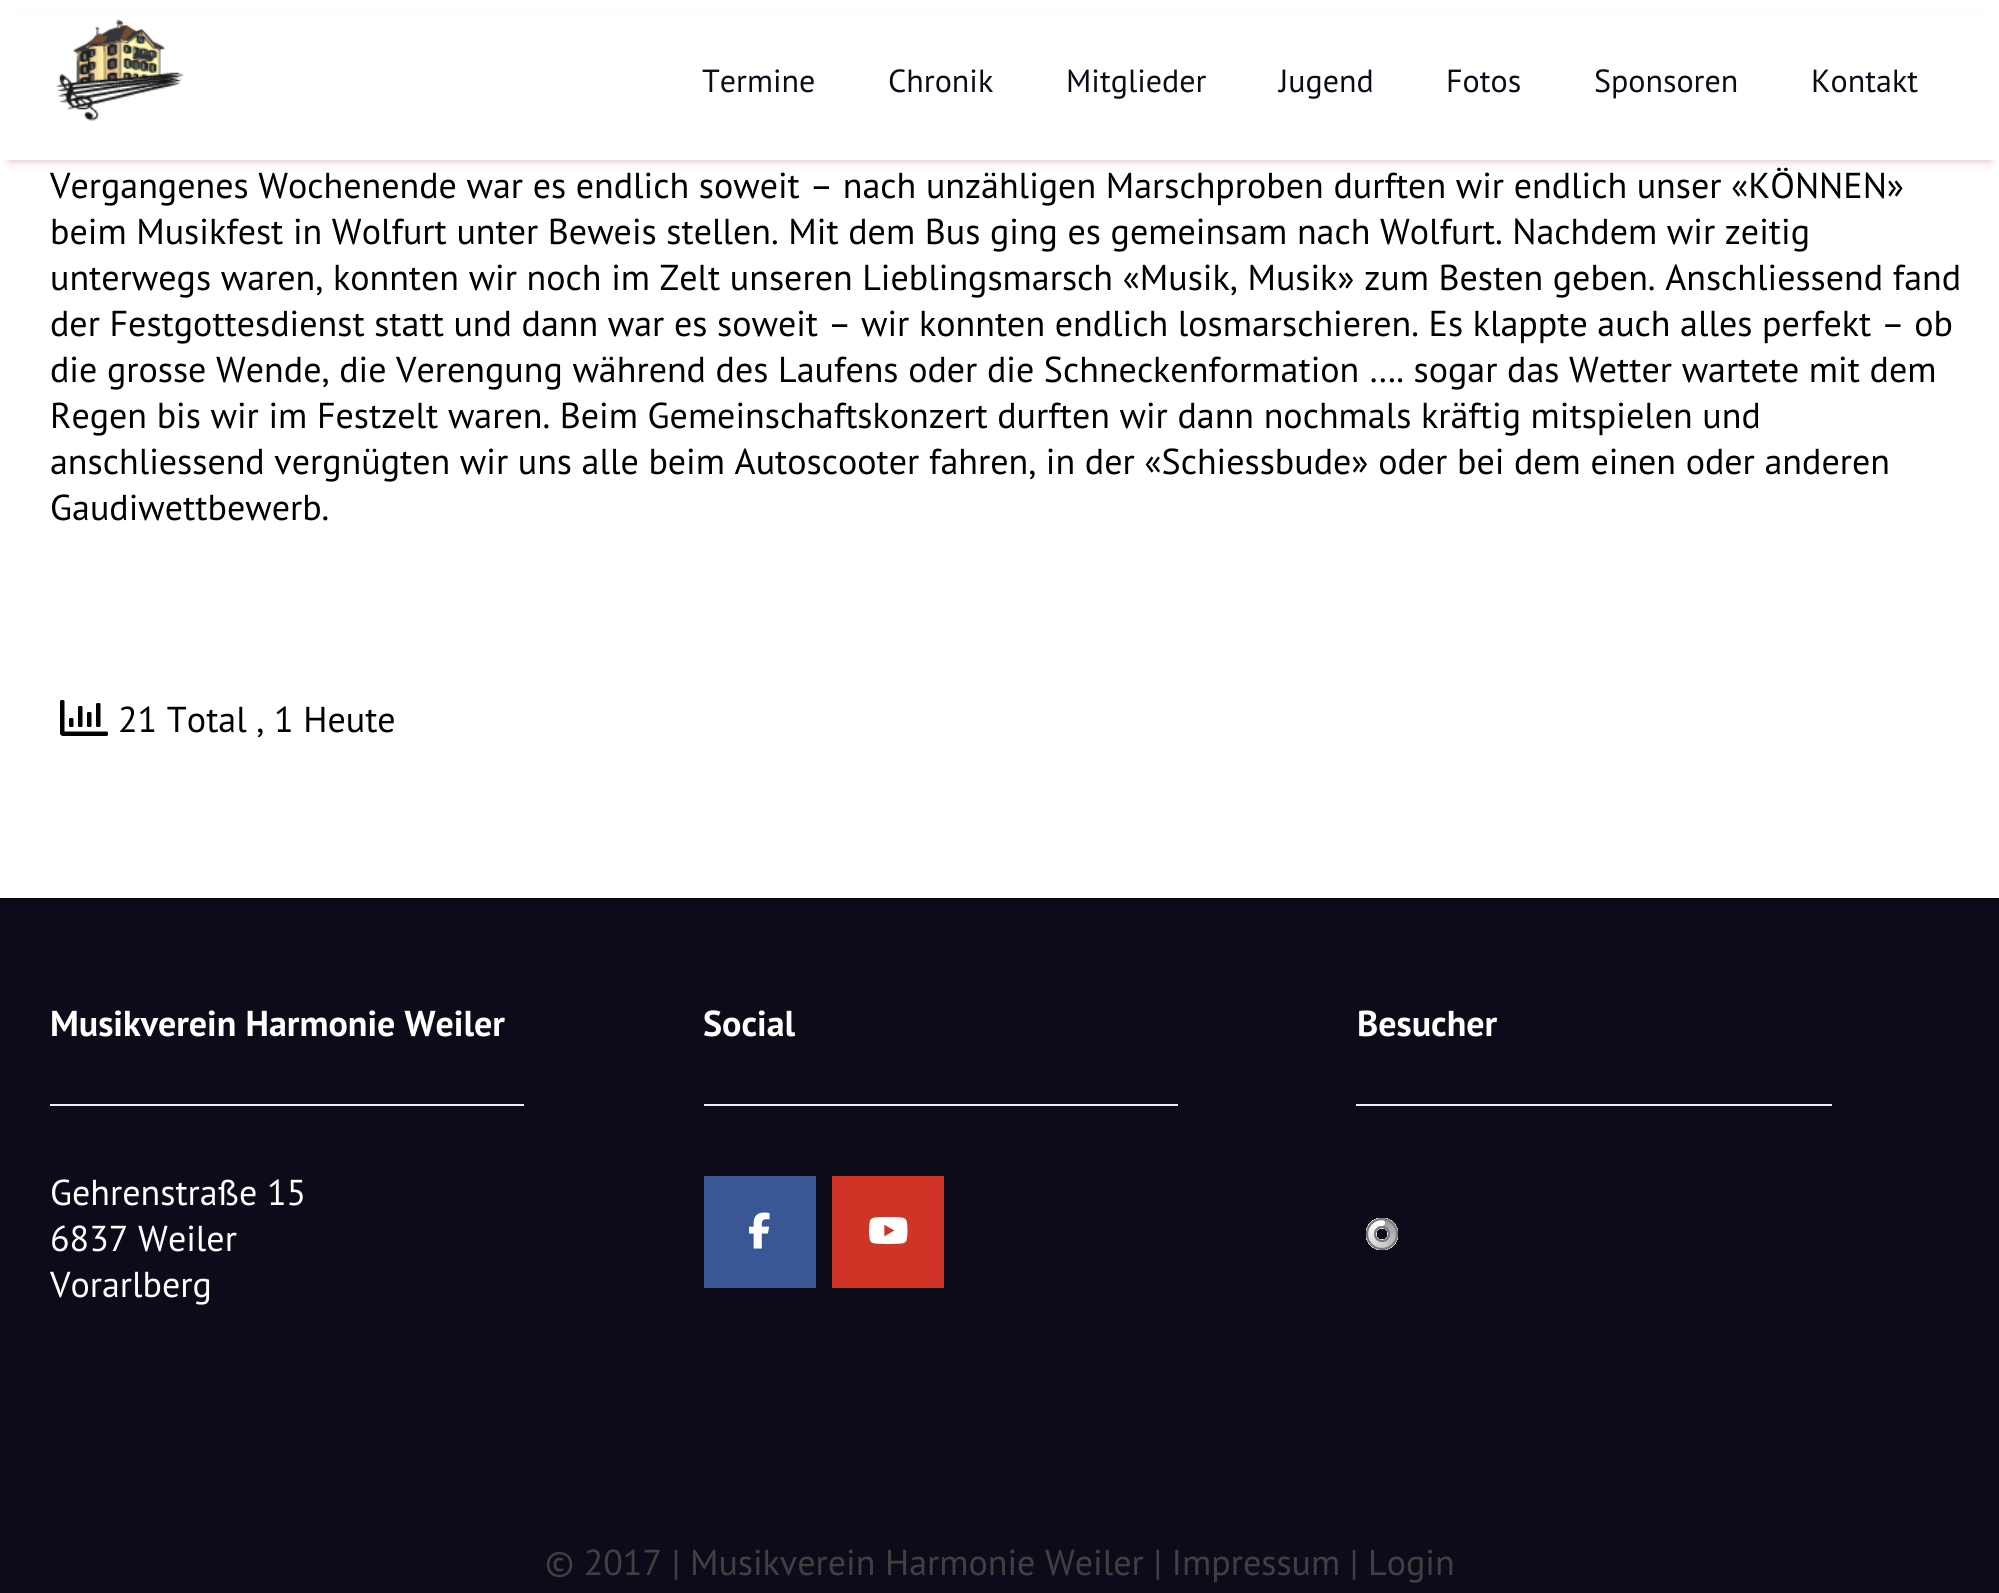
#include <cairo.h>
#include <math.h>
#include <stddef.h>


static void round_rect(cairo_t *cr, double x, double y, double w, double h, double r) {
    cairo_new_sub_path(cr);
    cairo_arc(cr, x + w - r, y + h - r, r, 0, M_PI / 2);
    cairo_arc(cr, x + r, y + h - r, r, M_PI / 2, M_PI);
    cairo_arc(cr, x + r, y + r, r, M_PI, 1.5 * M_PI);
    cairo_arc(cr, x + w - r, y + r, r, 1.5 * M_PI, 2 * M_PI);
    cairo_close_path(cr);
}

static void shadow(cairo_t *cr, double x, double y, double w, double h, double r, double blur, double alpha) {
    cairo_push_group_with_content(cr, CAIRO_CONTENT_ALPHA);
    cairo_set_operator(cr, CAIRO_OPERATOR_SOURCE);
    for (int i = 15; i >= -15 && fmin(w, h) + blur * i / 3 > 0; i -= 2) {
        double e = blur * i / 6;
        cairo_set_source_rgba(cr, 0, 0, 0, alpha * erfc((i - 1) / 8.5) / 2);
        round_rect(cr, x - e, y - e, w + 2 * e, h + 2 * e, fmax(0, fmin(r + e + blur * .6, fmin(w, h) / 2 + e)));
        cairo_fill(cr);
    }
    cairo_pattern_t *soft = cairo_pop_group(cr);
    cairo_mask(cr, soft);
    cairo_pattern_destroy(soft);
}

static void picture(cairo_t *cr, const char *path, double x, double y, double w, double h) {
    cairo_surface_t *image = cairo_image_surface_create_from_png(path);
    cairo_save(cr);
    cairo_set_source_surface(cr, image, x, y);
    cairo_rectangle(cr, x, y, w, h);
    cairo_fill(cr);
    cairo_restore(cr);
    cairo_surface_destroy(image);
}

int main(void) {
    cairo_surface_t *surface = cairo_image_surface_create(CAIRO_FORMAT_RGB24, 1999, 1593);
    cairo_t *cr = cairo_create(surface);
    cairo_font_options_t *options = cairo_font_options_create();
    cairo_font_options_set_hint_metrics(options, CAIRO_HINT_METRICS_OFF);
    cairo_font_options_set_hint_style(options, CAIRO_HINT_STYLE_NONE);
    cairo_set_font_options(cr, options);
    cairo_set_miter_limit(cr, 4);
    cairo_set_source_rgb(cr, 1, 1, 1);
    cairo_paint(cr);
    cairo_set_source_rgb(cr, 0.686, 0.094, 0.282);
    shadow(cr, 10, 20, 1980, 140, 0, 5, 0.35);
    cairo_set_source_rgb(cr, 1, 1, 1);
    cairo_rectangle(cr, 1, 11, 1998, 149);
    cairo_fill(cr);
    picture(cr, "img1.png", 56, 19, 128, 102);
    cairo_select_font_face(cr, "PT Sans", CAIRO_FONT_SLANT_NORMAL, CAIRO_FONT_WEIGHT_NORMAL);
    cairo_set_font_size(cr, 32);
    cairo_set_source_rgb(cr, 0.051, 0.043, 0.098);
    cairo_move_to(cr, 702, 92);
    cairo_show_text(cr, "Termine");
    cairo_move_to(cr, 888, 92);
    cairo_show_text(cr, "Chronik");
    cairo_move_to(cr, 1066, 92);
    cairo_show_text(cr, "Mitglieder");
    cairo_move_to(cr, 1279, 92);
    cairo_show_text(cr, "Jugend");
    cairo_move_to(cr, 1446, 92);
    cairo_show_text(cr, "Fotos");
    cairo_move_to(cr, 1594, 92);
    cairo_show_text(cr, "Sponsoren");
    cairo_move_to(cr, 1811, 92);
    cairo_show_text(cr, "Kontakt");
    cairo_set_font_size(cr, 36);
    cairo_set_source_rgb(cr, 0, 0, 0);
    cairo_move_to(cr, 50, 198);
    cairo_show_text(cr, "Vergangenes Wochenende war es endlich soweit – nach unzähligen Marschproben durften wir endlich unser «KÖNNEN»");
    cairo_move_to(cr, 50, 244);
    cairo_show_text(cr, "beim Musikfest in Wolfurt unter Beweis stellen. Mit dem Bus ging es gemeinsam nach Wolfurt. Nachdem wir zeitig");
    cairo_move_to(cr, 50, 290);
    cairo_show_text(cr, "unterwegs waren, konnten wir noch im Zelt unseren Lieblingsmarsch «Musik, Musik» zum Besten geben. Anschliessend fand");
    cairo_move_to(cr, 50, 336);
    cairo_show_text(cr, "der Festgottesdienst statt und dann war es soweit – wir konnten endlich losmarschieren. Es klappte auch alles perfekt – ob");
    cairo_move_to(cr, 50, 382);
    cairo_show_text(cr, "die grosse Wende, die Verengung während des Laufens oder die Schneckenformation …. sogar das Wetter wartete mit dem");
    cairo_move_to(cr, 50, 428);
    cairo_show_text(cr, "Regen bis wir im Festzelt waren. Beim Gemeinschaftskonzert durften wir dann nochmals kräftig mitspielen und");
    cairo_move_to(cr, 50, 474);
    cairo_show_text(cr, "anschliessend vergnügten wir uns alle beim Autoscooter fahren, in der «Schiessbude» oder bei dem einen oder anderen");
    cairo_move_to(cr, 50, 520);
    cairo_show_text(cr, "Gaudiwettbewerb.");
    picture(cr, "img2.png", 60, 700, 48, 36);
    cairo_move_to(cr, 118, 732);
    cairo_show_text(cr, "21 Total , 1 Heute");
    cairo_set_source_rgb(cr, 0.051, 0.043, 0.098);
    cairo_rectangle(cr, 0, 898, 1999, 695);
    cairo_fill(cr);
    cairo_select_font_face(cr, "PT Sans", CAIRO_FONT_SLANT_NORMAL, CAIRO_FONT_WEIGHT_BOLD);
    cairo_set_source_rgb(cr, 1, 1, 1);
    cairo_move_to(cr, 50, 1036);
    cairo_show_text(cr, "Musikverein Harmonie Weiler");
    cairo_set_source_rgb(cr, 0.933, 0.933, 0.933);
    cairo_rectangle(cr, 50, 1104, 474, 2);
    cairo_fill(cr);
    cairo_select_font_face(cr, "PT Sans", CAIRO_FONT_SLANT_NORMAL, CAIRO_FONT_WEIGHT_NORMAL);
    cairo_set_source_rgb(cr, 1, 1, 1);
    cairo_move_to(cr, 50, 1205);
    cairo_show_text(cr, "Gehrenstraße 15");
    cairo_move_to(cr, 50, 1251);
    cairo_show_text(cr, "6837 Weiler");
    cairo_move_to(cr, 50, 1297);
    cairo_show_text(cr, "Vorarlberg");
    cairo_select_font_face(cr, "PT Sans", CAIRO_FONT_SLANT_NORMAL, CAIRO_FONT_WEIGHT_BOLD);
    cairo_move_to(cr, 703, 1036);
    cairo_show_text(cr, "Social");
    cairo_set_source_rgb(cr, 0.933, 0.933, 0.933);
    cairo_rectangle(cr, 704, 1104, 474, 2);
    cairo_fill(cr);
    cairo_set_source_rgb(cr, 0.227, 0.341, 0.584);
    cairo_rectangle(cr, 704, 1176, 112, 112);
    cairo_fill(cr);
    picture(cr, "img3.png", 749, 1212, 21, 37);
    cairo_set_source_rgb(cr, 0.812, 0.204, 0.153);
    cairo_rectangle(cr, 832, 1176, 112, 112);
    cairo_fill(cr);
    picture(cr, "img4.png", 869, 1217, 39, 27);
    cairo_set_source_rgb(cr, 1, 1, 1);
    cairo_move_to(cr, 1357, 1036);
    cairo_show_text(cr, "Besucher");
    cairo_set_source_rgb(cr, 0.933, 0.933, 0.933);
    cairo_rectangle(cr, 1356, 1104, 476, 2);
    cairo_fill(cr);
    picture(cr, "img5.png", 1366, 1218, 32, 32);
    cairo_select_font_face(cr, "PT Sans", CAIRO_FONT_SLANT_NORMAL, CAIRO_FONT_WEIGHT_NORMAL);
    cairo_set_source_rgb(cr, 0.251, 0.251, 0.251);
    cairo_move_to(cr, 545, 1575);
    cairo_show_text(cr, "© 2017 | Musikverein Harmonie Weiler | Impressum | Login");
    cairo_surface_write_to_png(surface, "page.png");
    cairo_font_options_destroy(options);
    cairo_destroy(cr);
    cairo_surface_destroy(surface);
    return 0;
}
